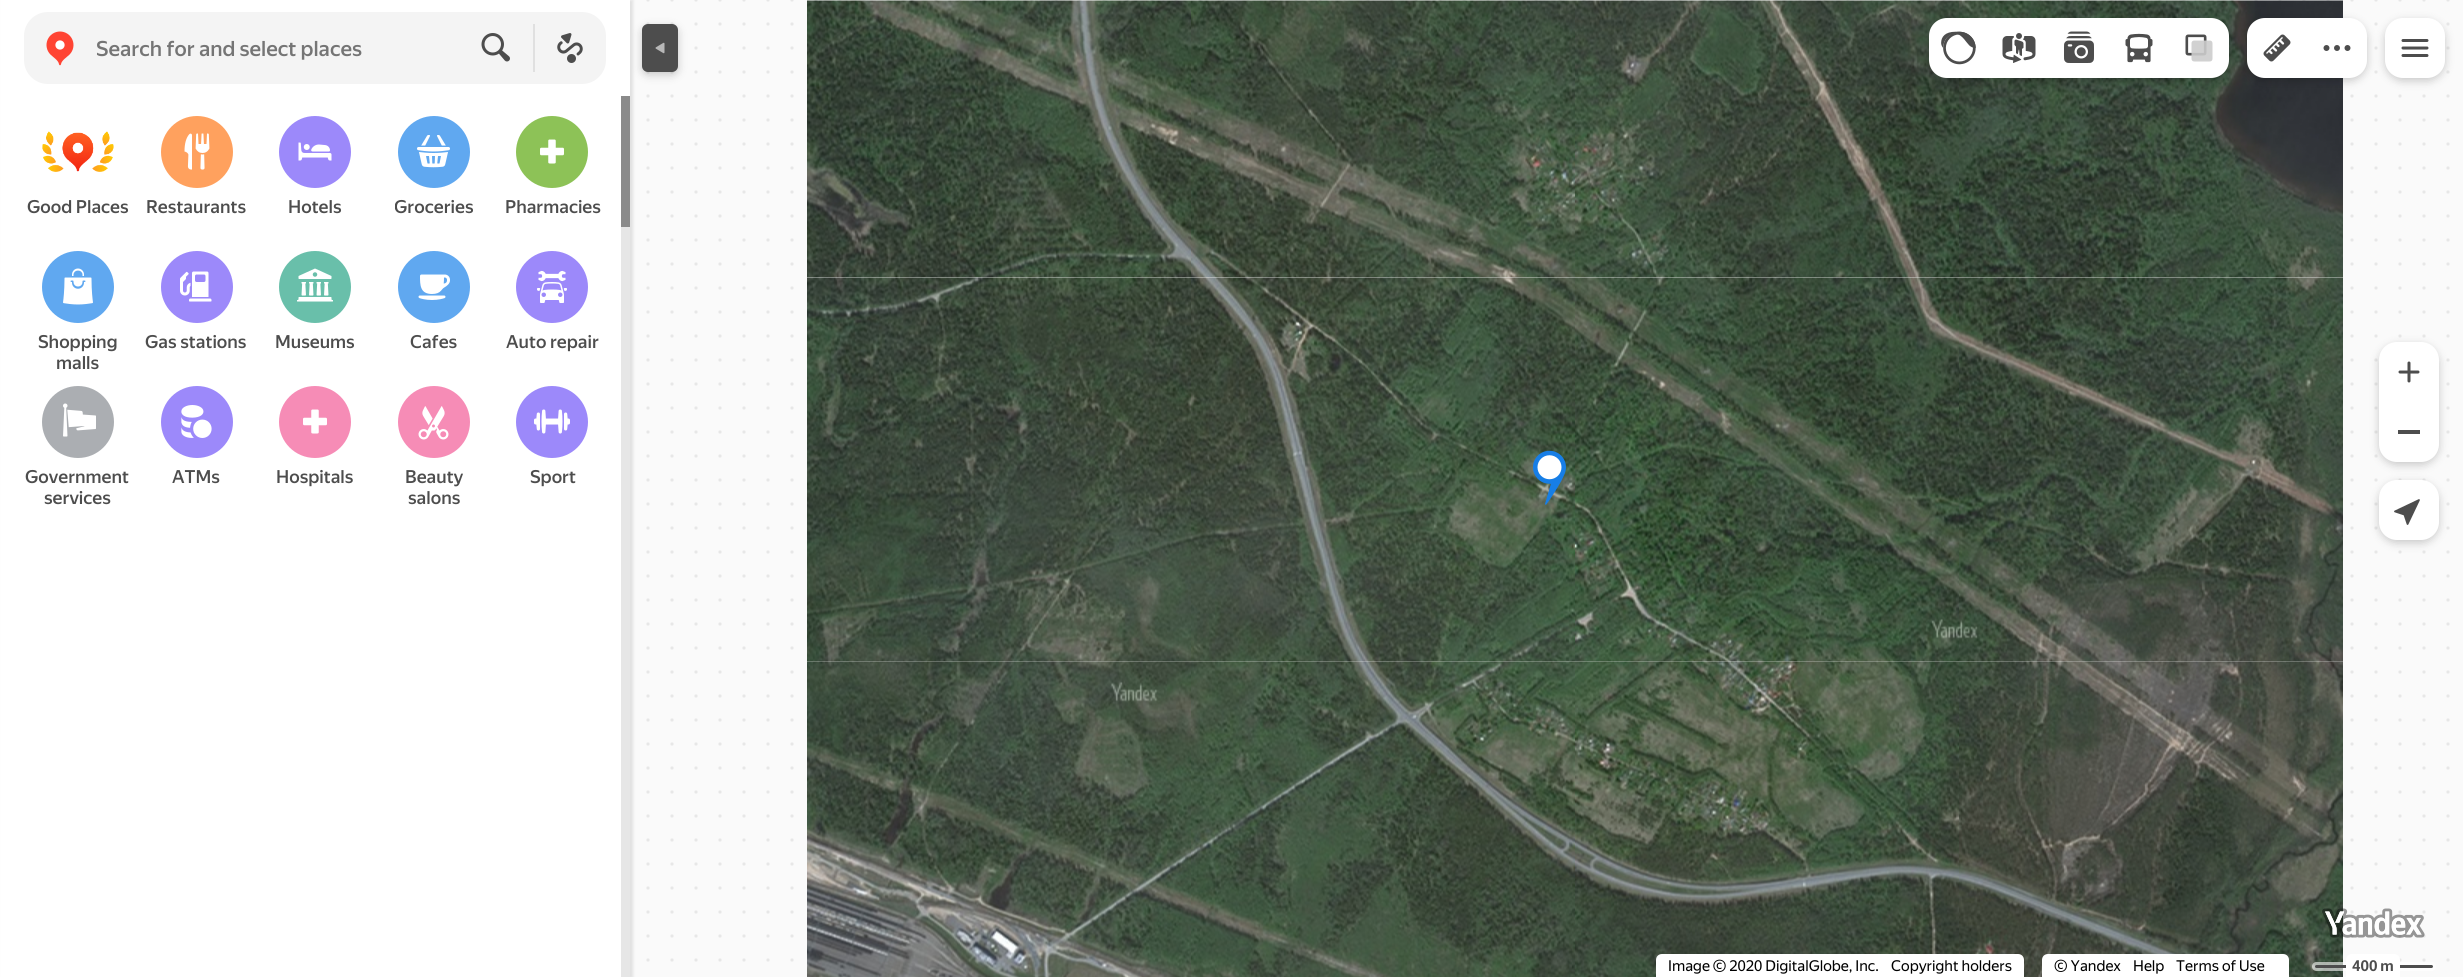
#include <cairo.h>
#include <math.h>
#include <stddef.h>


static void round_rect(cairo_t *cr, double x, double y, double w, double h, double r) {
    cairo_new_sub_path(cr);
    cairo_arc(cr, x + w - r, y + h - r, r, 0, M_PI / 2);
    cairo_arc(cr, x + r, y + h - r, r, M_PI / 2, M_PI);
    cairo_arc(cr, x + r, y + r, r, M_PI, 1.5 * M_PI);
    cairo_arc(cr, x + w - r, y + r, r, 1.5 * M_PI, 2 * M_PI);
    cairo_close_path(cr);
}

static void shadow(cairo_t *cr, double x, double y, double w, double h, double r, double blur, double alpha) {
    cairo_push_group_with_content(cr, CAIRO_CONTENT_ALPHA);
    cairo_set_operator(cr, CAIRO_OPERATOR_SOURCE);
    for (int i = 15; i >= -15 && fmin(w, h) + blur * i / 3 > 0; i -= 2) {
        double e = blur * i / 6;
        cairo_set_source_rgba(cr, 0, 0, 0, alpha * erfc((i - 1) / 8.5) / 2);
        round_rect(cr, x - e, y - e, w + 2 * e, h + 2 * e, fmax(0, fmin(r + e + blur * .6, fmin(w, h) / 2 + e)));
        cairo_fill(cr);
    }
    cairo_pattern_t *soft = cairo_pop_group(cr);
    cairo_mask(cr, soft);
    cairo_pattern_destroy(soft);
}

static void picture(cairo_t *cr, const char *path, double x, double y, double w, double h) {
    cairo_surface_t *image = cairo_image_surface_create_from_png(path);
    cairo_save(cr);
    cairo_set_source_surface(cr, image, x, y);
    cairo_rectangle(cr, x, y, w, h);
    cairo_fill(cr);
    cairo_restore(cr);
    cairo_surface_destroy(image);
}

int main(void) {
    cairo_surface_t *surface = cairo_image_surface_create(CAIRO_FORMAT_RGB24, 2463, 977);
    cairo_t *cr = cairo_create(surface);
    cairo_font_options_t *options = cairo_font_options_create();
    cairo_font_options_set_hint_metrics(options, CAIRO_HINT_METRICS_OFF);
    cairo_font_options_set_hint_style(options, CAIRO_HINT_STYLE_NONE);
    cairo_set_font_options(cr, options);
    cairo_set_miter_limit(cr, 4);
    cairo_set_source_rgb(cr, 1, 1, 1);
    cairo_paint(cr);
    picture(cr, "img1.png", 630, 0, 1833, 977);
    picture(cr, "img2.png", 807, 0, 384, 278);
    picture(cr, "img3.png", 1191, 0, 384, 278);
    picture(cr, "img4.png", 1575, 0, 384, 278);
    picture(cr, "img5.png", 1959, 0, 384, 278);
    picture(cr, "img6.png", 807, 277, 384, 385);
    picture(cr, "img7.png", 1191, 277, 384, 385);
    picture(cr, "img8.png", 1575, 277, 384, 385);
    picture(cr, "img9.png", 1959, 277, 384, 385);
    picture(cr, "img10.png", 807, 661, 384, 316);
    picture(cr, "img11.png", 1191, 661, 384, 316);
    picture(cr, "img12.png", 1575, 661, 384, 316);
    picture(cr, "img13.png", 1959, 661, 384, 316);
    picture(cr, "img14.png", 1533, 450, 33, 55);
    cairo_set_source_rgb(cr, 0, 0, 0);
    shadow(cr, 3, 0, 630, 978, 0, 1.5, 0.1);
    shadow(cr, 642, 27, 36, 48, 6, 4.5, 0.2);
    cairo_set_source_rgb(cr, 1, 1, 1);
    cairo_rectangle(cr, 1, 0, 629, 977);
    cairo_fill(cr);
    cairo_set_source_rgb(cr, 0.957, 0.957, 0.957);
    round_rect(cr, 24, 12, 582, 72, 24);
    cairo_fill(cr);
    picture(cr, "img15.png", 46, 31, 28, 35);
    cairo_select_font_face(cr, "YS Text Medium", CAIRO_FONT_SLANT_NORMAL, CAIRO_FONT_WEIGHT_NORMAL);
    cairo_set_font_size(cr, 21);
    cairo_set_source_rgb(cr, 0.459, 0.459, 0.459);
    cairo_move_to(cr, 96, 56);
    cairo_show_text(cr, "Search for and select places");
    picture(cr, "img16.png", 481, 33, 29, 29);
    cairo_set_source_rgb(cr, 0.878, 0.878, 0.878);
    cairo_rectangle(cr, 533, 24, 2, 48);
    cairo_fill(cr);
    picture(cr, "img17.png", 557, 33, 26, 30);
    cairo_set_source_rgb(cr, 0, 0, 0);
    shadow(cr, 1929, 21, 300, 60, 18, 4.5, 0.2);
    cairo_set_source_rgb(cr, 1, 1, 1);
    cairo_new_path(cr);
    cairo_move_to(cr, 1947, 18);
    cairo_line_to(cr, 1989, 18);
    cairo_line_to(cr, 1989, 78);
    cairo_line_to(cr, 1947, 78);
    cairo_curve_to(cr, 1937, 78, 1929, 70, 1929, 60);
    cairo_line_to(cr, 1929, 36);
    cairo_curve_to(cr, 1929, 26, 1937, 18, 1947, 18);
    cairo_close_path(cr);
    cairo_fill(cr);
    picture(cr, "img18.png", 1941, 31, 35, 34);
    cairo_rectangle(cr, 1989, 18, 180, 60);
    cairo_fill(cr);
    picture(cr, "img19.png", 2002, 33, 34, 30);
    cairo_new_path(cr);
    cairo_move_to(cr, 2169, 18);
    cairo_line_to(cr, 2211, 18);
    cairo_curve_to(cr, 2221, 18, 2229, 26, 2229, 36);
    cairo_line_to(cr, 2229, 60);
    cairo_curve_to(cr, 2229, 70, 2221, 78, 2211, 78);
    cairo_line_to(cr, 2169, 78);
    cairo_close_path(cr);
    cairo_fill(cr);
    picture(cr, "img20.png", 2185, 34, 28, 28);
    picture(cr, "img21.png", 2064, 31, 30, 32);
    picture(cr, "img22.png", 2125, 33, 28, 30);
    cairo_set_source_rgb(cr, 0, 0, 0);
    shadow(cr, 2247, 21, 120, 60, 18, 4.5, 0.2);
    cairo_set_source_rgb(cr, 1, 1, 1);
    cairo_new_path(cr);
    cairo_move_to(cr, 2265, 18);
    cairo_line_to(cr, 2307, 18);
    cairo_line_to(cr, 2307, 78);
    cairo_line_to(cr, 2265, 78);
    cairo_curve_to(cr, 2255, 78, 2247, 70, 2247, 60);
    cairo_line_to(cr, 2247, 36);
    cairo_curve_to(cr, 2247, 26, 2255, 18, 2265, 18);
    cairo_close_path(cr);
    cairo_fill(cr);
    picture(cr, "img23.png", 2263, 34, 28, 28);
    cairo_new_path(cr);
    cairo_move_to(cr, 2307, 18);
    cairo_line_to(cr, 2349, 18);
    cairo_curve_to(cr, 2359, 18, 2367, 26, 2367, 36);
    cairo_line_to(cr, 2367, 60);
    cairo_curve_to(cr, 2367, 70, 2359, 78, 2349, 78);
    cairo_line_to(cr, 2307, 78);
    cairo_close_path(cr);
    cairo_fill(cr);
    picture(cr, "img24.png", 2323, 45, 28, 6);
    cairo_set_source_rgb(cr, 0, 0, 0);
    shadow(cr, 2385, 21, 60, 60, 18, 4.5, 0.2);
    cairo_set_source_rgb(cr, 1, 1, 1);
    round_rect(cr, 2385, 18, 60, 60, 18);
    cairo_fill(cr);
    picture(cr, "img25.png", 2401, 39, 28, 18);
    cairo_set_source_rgb(cr, 0, 0, 0);
    shadow(cr, 2379, 345, 60, 120, 18, 4.5, 0.2);
    cairo_set_source_rgb(cr, 1, 1, 1);
    cairo_new_path(cr);
    cairo_move_to(cr, 2397, 342);
    cairo_line_to(cr, 2421, 342);
    cairo_curve_to(cr, 2431, 342, 2439, 350, 2439, 360);
    cairo_line_to(cr, 2439, 402);
    cairo_line_to(cr, 2379, 402);
    cairo_line_to(cr, 2379, 360);
    cairo_curve_to(cr, 2379, 350, 2387, 342, 2397, 342);
    cairo_close_path(cr);
    cairo_fill(cr);
    picture(cr, "img26.png", 2398, 361, 22, 22);
    cairo_new_path(cr);
    cairo_move_to(cr, 2379, 402);
    cairo_line_to(cr, 2439, 402);
    cairo_line_to(cr, 2439, 444);
    cairo_curve_to(cr, 2439, 454, 2431, 462, 2421, 462);
    cairo_line_to(cr, 2397, 462);
    cairo_curve_to(cr, 2387, 462, 2379, 454, 2379, 444);
    cairo_close_path(cr);
    cairo_fill(cr);
    cairo_set_source_rgb(cr, 0.302, 0.302, 0.302);
    cairo_rectangle(cr, 2398, 430, 22, 4);
    cairo_fill(cr);
    cairo_set_source_rgb(cr, 0, 0, 0);
    shadow(cr, 2379, 483, 60, 60, 18, 4.5, 0.2);
    cairo_set_source_rgb(cr, 1, 1, 1);
    round_rect(cr, 2379, 480, 60, 60, 18);
    cairo_fill(cr);
    picture(cr, "img27.png", 2394, 499, 26, 26);
    cairo_set_source_rgb(cr, 0.302, 0.302, 0.302);
    round_rect(cr, 642, 24, 36, 48, 6);
    cairo_fill(cr);
    picture(cr, "img28.png", 655, 42, 10, 12);
    picture(cr, "img29.png", 42, 131, 72, 41);
    cairo_set_font_size(cr, 18);
    cairo_move_to(cr, 27, 213);
    cairo_show_text(cr, "Good Places");
    cairo_set_source_rgb(cr, 1, 0.631, 0.369);
    cairo_new_path(cr);
    cairo_arc(cr, 197, 152, 36, 0, 2 * M_PI);
    cairo_fill(cr);
    picture(cr, "img30.png", 184, 133, 26, 37);
    cairo_set_source_rgb(cr, 0.302, 0.302, 0.302);
    cairo_move_to(cr, 146, 213);
    cairo_show_text(cr, "Restaurants");
    cairo_set_source_rgb(cr, 0.612, 0.537, 0.98);
    cairo_new_path(cr);
    cairo_arc(cr, 315, 152, 36, 0, 2 * M_PI);
    cairo_fill(cr);
    picture(cr, "img31.png", 298, 142, 34, 19);
    cairo_set_source_rgb(cr, 0.302, 0.302, 0.302);
    cairo_move_to(cr, 288, 213);
    cairo_show_text(cr, "Hotels");
    cairo_set_source_rgb(cr, 0.376, 0.659, 0.941);
    cairo_new_path(cr);
    cairo_arc(cr, 434, 152, 36, 0, 2 * M_PI);
    cairo_fill(cr);
    picture(cr, "img32.png", 417, 135, 33, 33);
    cairo_save(cr);
    cairo_rectangle(cr, 395, 197, 79, 21);
    cairo_clip(cr);
    cairo_set_source_rgb(cr, 0.302, 0.302, 0.302);
    cairo_move_to(cr, 394, 213);
    cairo_show_text(cr, "Groceries");
    cairo_restore(cr);
    cairo_set_source_rgb(cr, 0.553, 0.761, 0.341);
    cairo_new_path(cr);
    cairo_arc(cr, 552, 152, 36, 0, 2 * M_PI);
    cairo_fill(cr);
    picture(cr, "img33.png", 540, 139, 24, 25);
    cairo_set_source_rgb(cr, 0.302, 0.302, 0.302);
    cairo_move_to(cr, 505, 213);
    cairo_show_text(cr, "Pharmacies");
    cairo_set_source_rgb(cr, 0.376, 0.659, 0.941);
    cairo_new_path(cr);
    cairo_arc(cr, 78, 287, 36, 0, 2 * M_PI);
    cairo_fill(cr);
    picture(cr, "img34.png", 63, 268, 30, 37);
    cairo_set_source_rgb(cr, 0.302, 0.302, 0.302);
    cairo_move_to(cr, 38, 348);
    cairo_show_text(cr, "Shopping");
    cairo_move_to(cr, 56, 369);
    cairo_show_text(cr, "malls");
    cairo_set_source_rgb(cr, 0.612, 0.537, 0.98);
    cairo_new_path(cr);
    cairo_arc(cr, 197, 287, 36, 0, 2 * M_PI);
    cairo_fill(cr);
    picture(cr, "img35.png", 180, 271, 32, 31);
    cairo_set_source_rgb(cr, 0.302, 0.302, 0.302);
    cairo_move_to(cr, 145, 348);
    cairo_show_text(cr, "Gas stations");
    cairo_set_source_rgb(cr, 0.412, 0.749, 0.667);
    cairo_new_path(cr);
    cairo_arc(cr, 315, 287, 36, 0, 2 * M_PI);
    cairo_fill(cr);
    picture(cr, "img36.png", 297, 268, 36, 34);
    cairo_set_source_rgb(cr, 0.302, 0.302, 0.302);
    cairo_move_to(cr, 275, 348);
    cairo_show_text(cr, "Museums");
    cairo_set_source_rgb(cr, 0.376, 0.659, 0.941);
    cairo_new_path(cr);
    cairo_arc(cr, 434, 287, 36, 0, 2 * M_PI);
    cairo_fill(cr);
    picture(cr, "img37.png", 418, 274, 32, 26);
    cairo_set_source_rgb(cr, 0.302, 0.302, 0.302);
    cairo_move_to(cr, 410, 348);
    cairo_show_text(cr, "Cafes");
    cairo_set_source_rgb(cr, 0.612, 0.537, 0.98);
    cairo_new_path(cr);
    cairo_arc(cr, 552, 287, 36, 0, 2 * M_PI);
    cairo_fill(cr);
    picture(cr, "img38.png", 537, 270, 30, 33);
    cairo_set_source_rgb(cr, 0.302, 0.302, 0.302);
    cairo_move_to(cr, 506, 348);
    cairo_show_text(cr, "Auto repair");
    cairo_set_source_rgb(cr, 0.671, 0.682, 0.698);
    cairo_new_path(cr);
    cairo_arc(cr, 78, 422, 36, 0, 2 * M_PI);
    cairo_fill(cr);
    picture(cr, "img39.png", 63, 403, 33, 34);
    cairo_set_source_rgb(cr, 0.302, 0.302, 0.302);
    cairo_move_to(cr, 25, 483);
    cairo_show_text(cr, "Government");
    cairo_move_to(cr, 44, 504);
    cairo_show_text(cr, "services");
    cairo_set_source_rgb(cr, 0.612, 0.537, 0.98);
    cairo_new_path(cr);
    cairo_arc(cr, 197, 422, 36, 0, 2 * M_PI);
    cairo_fill(cr);
    picture(cr, "img40.png", 181, 405, 31, 33);
    cairo_set_source_rgb(cr, 0.302, 0.302, 0.302);
    cairo_move_to(cr, 172, 483);
    cairo_show_text(cr, "ATMs");
    cairo_set_source_rgb(cr, 0.961, 0.549, 0.714);
    cairo_new_path(cr);
    cairo_arc(cr, 315, 422, 36, 0, 2 * M_PI);
    cairo_fill(cr);
    picture(cr, "img41.png", 303, 409, 24, 25);
    cairo_set_source_rgb(cr, 0.302, 0.302, 0.302);
    cairo_move_to(cr, 276, 483);
    cairo_show_text(cr, "Hospitals");
    cairo_set_source_rgb(cr, 0.961, 0.549, 0.714);
    cairo_new_path(cr);
    cairo_arc(cr, 434, 422, 36, 0, 2 * M_PI);
    cairo_fill(cr);
    picture(cr, "img42.png", 418, 406, 31, 34);
    cairo_set_source_rgb(cr, 0.302, 0.302, 0.302);
    cairo_move_to(cr, 405, 483);
    cairo_show_text(cr, "Beauty");
    cairo_move_to(cr, 408, 504);
    cairo_show_text(cr, "salons");
    cairo_set_source_rgb(cr, 0.612, 0.537, 0.98);
    cairo_new_path(cr);
    cairo_arc(cr, 552, 422, 36, 0, 2 * M_PI);
    cairo_fill(cr);
    picture(cr, "img43.png", 534, 409, 36, 25);
    cairo_set_source_rgb(cr, 0.302, 0.302, 0.302);
    cairo_move_to(cr, 530, 483);
    cairo_show_text(cr, "Sport");
    cairo_set_source_rgb(cr, 0.541, 0.541, 0.541);
    cairo_rectangle(cr, 621, 96, 9, 131);
    cairo_fill(cr);
    cairo_set_source_rgb(cr, 0.902, 0.902, 0.902);
    cairo_rectangle(cr, 621, 227, 9, 750);
    cairo_fill(cr);
    picture(cr, "img44.png", 2322, 908, 103, 30);
    cairo_set_source_rgb(cr, 1, 1, 1);
    cairo_new_path(cr);
    cairo_move_to(cr, 1662, 954);
    cairo_line_to(cr, 2018, 954);
    cairo_curve_to(cr, 2021.5, 954, 2024, 956.5, 2024, 960);
    cairo_line_to(cr, 2024, 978);
    cairo_line_to(cr, 1656, 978);
    cairo_line_to(cr, 1656, 960);
    cairo_curve_to(cr, 1656, 956.5, 1658.5, 954, 1662, 954);
    cairo_close_path(cr);
    cairo_fill(cr);
    cairo_select_font_face(cr, "YS Text", CAIRO_FONT_SLANT_NORMAL, CAIRO_FONT_WEIGHT_NORMAL);
    cairo_set_font_size(cr, 15);
    cairo_set_source_rgb(cr, 0, 0, 0);
    cairo_move_to(cr, 1668, 971);
    cairo_show_text(cr, "Image © 2020 DigitalGlobe, Inc.");
    cairo_move_to(cr, 1891, 971);
    cairo_show_text(cr, "Copyright holders");
    cairo_set_source_rgb(cr, 1, 1, 1);
    cairo_new_path(cr);
    cairo_move_to(cr, 2048, 954);
    cairo_line_to(cr, 2283, 954);
    cairo_curve_to(cr, 2286.5, 954, 2289, 956.5, 2289, 960);
    cairo_line_to(cr, 2289, 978);
    cairo_line_to(cr, 2042, 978);
    cairo_line_to(cr, 2042, 960);
    cairo_curve_to(cr, 2042, 956.5, 2044.5, 954, 2048, 954);
    cairo_close_path(cr);
    cairo_fill(cr);
    cairo_set_source_rgb(cr, 0, 0, 0);
    cairo_move_to(cr, 2054, 971);
    cairo_show_text(cr, "© Yandex");
    cairo_move_to(cr, 2133, 971);
    cairo_show_text(cr, "Help");
    cairo_move_to(cr, 2176, 971);
    cairo_show_text(cr, "Terms of Use");
    cairo_set_source_rgba(cr, 1, 1, 1, 0.6);
    round_rect(cr, 2312, 962, 124, 9, 4.5);
    cairo_fill(cr);
    cairo_set_source_rgb(cr, 0.302, 0.302, 0.302);
    round_rect(cr, 2315, 965, 118, 3, 1.5);
    cairo_fill(cr);
    cairo_set_source_rgb(cr, 1, 1, 1);
    cairo_new_path(cr);
    cairo_move_to(cr, 2352, 954);
    cairo_line_to(cr, 2394, 954);
    cairo_curve_to(cr, 2397.5, 954, 2400, 956.5, 2400, 960);
    cairo_line_to(cr, 2400, 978);
    cairo_line_to(cr, 2346, 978);
    cairo_line_to(cr, 2346, 960);
    cairo_curve_to(cr, 2346, 956.5, 2348.5, 954, 2352, 954);
    cairo_close_path(cr);
    cairo_fill(cr);
    cairo_select_font_face(cr, "YS Text", CAIRO_FONT_SLANT_NORMAL, CAIRO_FONT_WEIGHT_BOLD);
    cairo_set_source_rgb(cr, 0.302, 0.302, 0.302);
    cairo_move_to(cr, 2352, 971);
    cairo_show_text(cr, "400 m");
    cairo_surface_write_to_png(surface, "page.png");
    cairo_font_options_destroy(options);
    cairo_destroy(cr);
    cairo_surface_destroy(surface);
    return 0;
}
